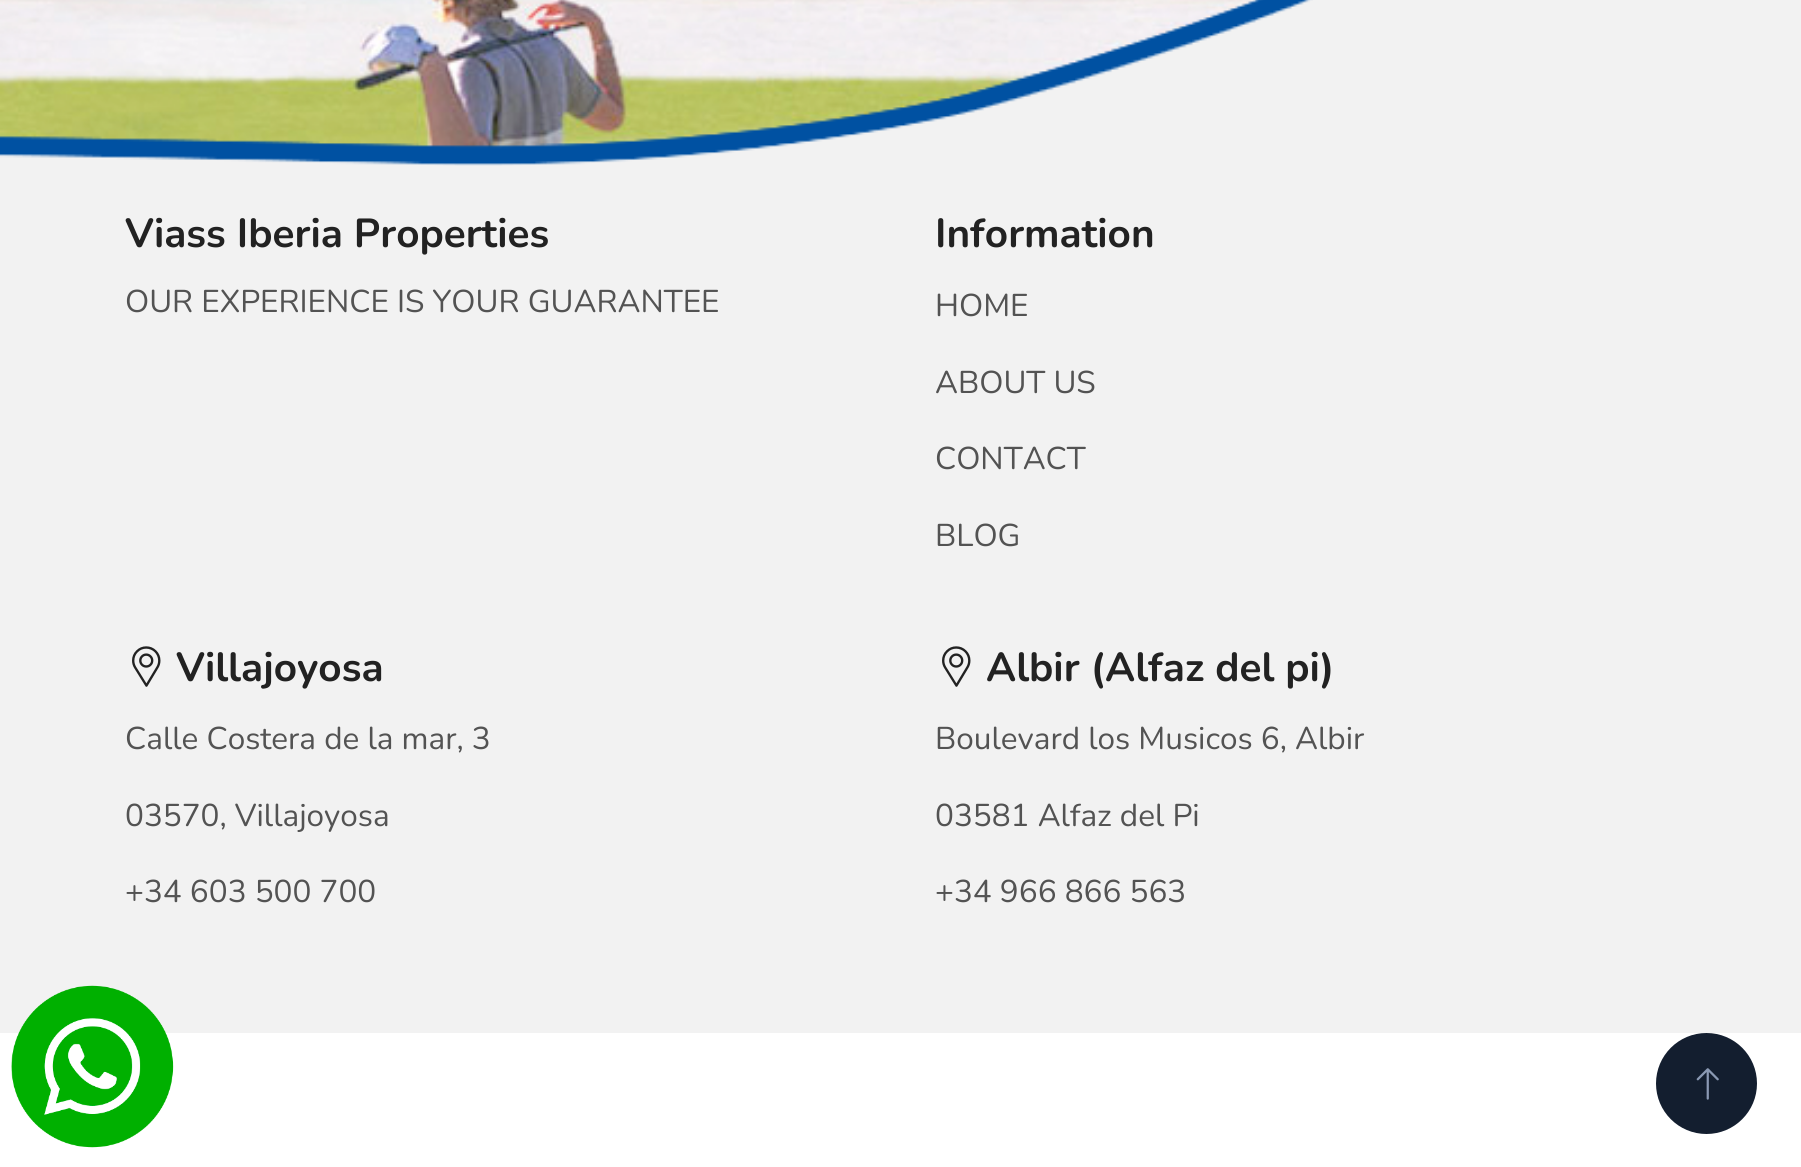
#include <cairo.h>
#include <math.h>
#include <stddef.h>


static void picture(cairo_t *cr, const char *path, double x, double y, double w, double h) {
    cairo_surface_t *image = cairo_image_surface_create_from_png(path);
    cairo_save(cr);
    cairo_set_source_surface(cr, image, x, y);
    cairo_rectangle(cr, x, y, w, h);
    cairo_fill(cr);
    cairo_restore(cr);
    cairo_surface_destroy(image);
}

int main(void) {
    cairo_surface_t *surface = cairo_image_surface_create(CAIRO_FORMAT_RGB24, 1801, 1167);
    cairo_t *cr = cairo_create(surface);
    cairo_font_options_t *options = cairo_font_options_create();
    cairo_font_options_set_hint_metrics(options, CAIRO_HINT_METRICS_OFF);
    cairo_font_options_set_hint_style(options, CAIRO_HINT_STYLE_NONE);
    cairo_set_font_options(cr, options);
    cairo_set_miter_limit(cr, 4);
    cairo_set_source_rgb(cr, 1, 1, 1);
    cairo_paint(cr);
    cairo_set_source_rgb(cr, 0.949, 0.949, 0.949);
    cairo_rectangle(cr, 0, 0, 1801, 1033);
    cairo_fill(cr);
    picture(cr, "img1.png", 0, 0, 1313, 166);
    cairo_select_font_face(cr, "Nunito", CAIRO_FONT_SLANT_NORMAL, CAIRO_FONT_WEIGHT_BOLD);
    cairo_set_font_size(cr, 40.5);
    cairo_set_source_rgb(cr, 0.133, 0.133, 0.133);
    cairo_move_to(cr, 125, 247);
    cairo_show_text(cr, "Viass Iberia Properties");
    cairo_select_font_face(cr, "Nunito", CAIRO_FONT_SLANT_NORMAL, CAIRO_FONT_WEIGHT_NORMAL);
    cairo_set_font_size(cr, 31.5);
    cairo_set_source_rgb(cr, 0.325, 0.325, 0.325);
    cairo_move_to(cr, 125, 312);
    cairo_show_text(cr, "OUR EXPERIENCE IS YOUR GUARANTEE");
    cairo_select_font_face(cr, "Nunito", CAIRO_FONT_SLANT_NORMAL, CAIRO_FONT_WEIGHT_BOLD);
    cairo_set_font_size(cr, 40.5);
    cairo_set_source_rgb(cr, 0.133, 0.133, 0.133);
    cairo_move_to(cr, 935, 247);
    cairo_show_text(cr, "Information");
    cairo_select_font_face(cr, "Nunito", CAIRO_FONT_SLANT_NORMAL, CAIRO_FONT_WEIGHT_NORMAL);
    cairo_set_font_size(cr, 31.5);
    cairo_set_source_rgb(cr, 0.325, 0.325, 0.325);
    cairo_move_to(cr, 935, 316);
    cairo_show_text(cr, "HOME");
    cairo_move_to(cr, 935, 393);
    cairo_show_text(cr, "ABOUT US");
    cairo_move_to(cr, 935, 469);
    cairo_show_text(cr, "CONTACT");
    cairo_move_to(cr, 935, 546);
    cairo_show_text(cr, "BLOG");
    picture(cr, "img2.png", 132, 646, 29, 41);
    cairo_select_font_face(cr, "Nunito", CAIRO_FONT_SLANT_NORMAL, CAIRO_FONT_WEIGHT_BOLD);
    cairo_set_font_size(cr, 40.5);
    cairo_set_source_rgb(cr, 0.133, 0.133, 0.133);
    cairo_move_to(cr, 176, 681);
    cairo_show_text(cr, "Villajoyosa");
    cairo_select_font_face(cr, "Nunito", CAIRO_FONT_SLANT_NORMAL, CAIRO_FONT_WEIGHT_NORMAL);
    cairo_set_font_size(cr, 31.5);
    cairo_set_source_rgb(cr, 0.325, 0.325, 0.325);
    cairo_move_to(cr, 125, 749);
    cairo_show_text(cr, "Calle Costera de la mar, 3");
    cairo_move_to(cr, 125, 826);
    cairo_show_text(cr, "03570, Villajoyosa");
    cairo_move_to(cr, 125, 902);
    cairo_show_text(cr, "+34 603 500 700");
    picture(cr, "img2.png", 942, 646, 29, 41);
    cairo_select_font_face(cr, "Nunito", CAIRO_FONT_SLANT_NORMAL, CAIRO_FONT_WEIGHT_BOLD);
    cairo_set_font_size(cr, 40.5);
    cairo_set_source_rgb(cr, 0.133, 0.133, 0.133);
    cairo_move_to(cr, 986, 681);
    cairo_show_text(cr, "Albir (Alfaz del pi)");
    cairo_select_font_face(cr, "Nunito", CAIRO_FONT_SLANT_NORMAL, CAIRO_FONT_WEIGHT_NORMAL);
    cairo_set_font_size(cr, 31.5);
    cairo_set_source_rgb(cr, 0.325, 0.325, 0.325);
    cairo_move_to(cr, 935, 749);
    cairo_show_text(cr, "Boulevard los Musicos 6, Albir");
    cairo_move_to(cr, 935, 826);
    cairo_show_text(cr, "03581 Alfaz del Pi");
    cairo_move_to(cr, 935, 902);
    cairo_show_text(cr, "+34 966 866 563");
    picture(cr, "img3.png", 11, 985, 163, 163);
    cairo_set_source_rgb(cr, 0.078, 0.118, 0.184);
    cairo_arc(cr, 1706.5, 1083.5, 50.5, 0, 2 * M_PI);
    cairo_fill(cr);
    picture(cr, "img4.png", 1696, 1068, 23, 32);
    cairo_surface_write_to_png(surface, "page.png");
    cairo_font_options_destroy(options);
    cairo_destroy(cr);
    cairo_surface_destroy(surface);
    return 0;
}
